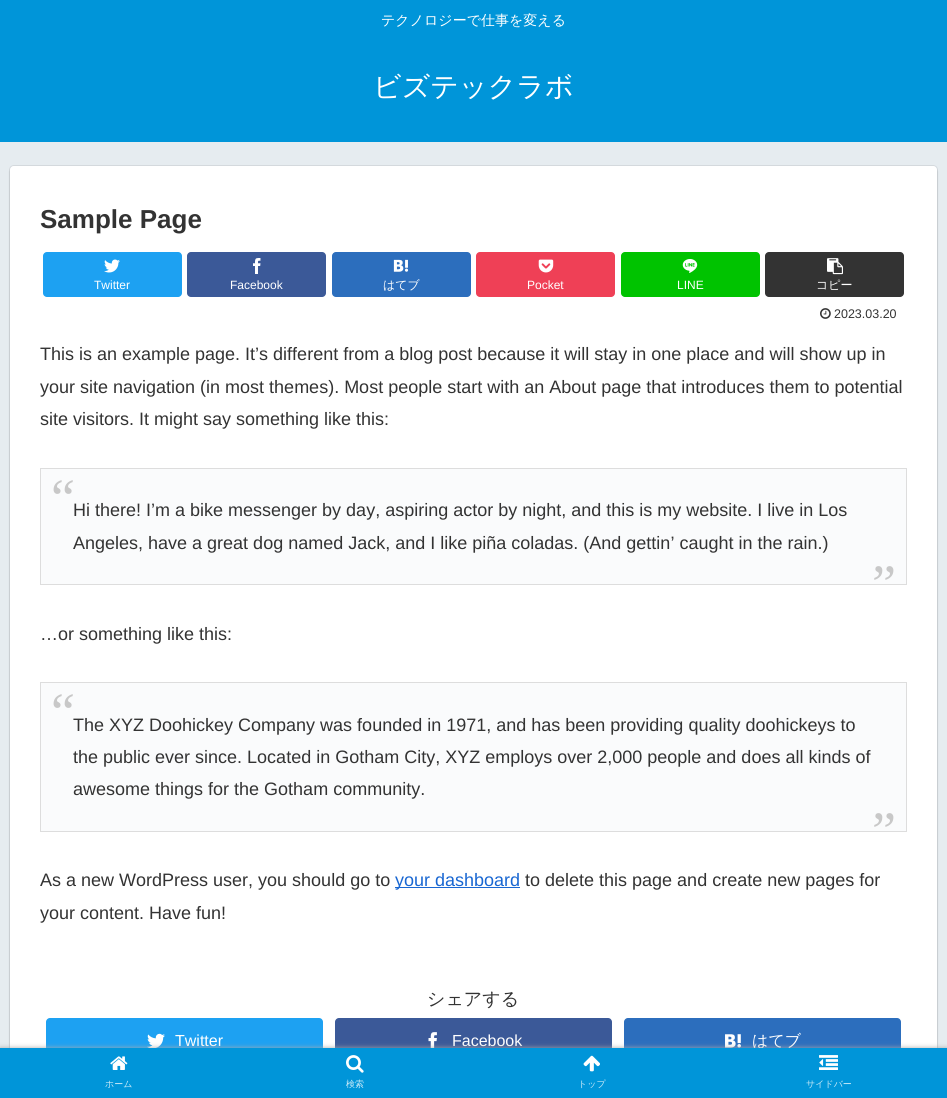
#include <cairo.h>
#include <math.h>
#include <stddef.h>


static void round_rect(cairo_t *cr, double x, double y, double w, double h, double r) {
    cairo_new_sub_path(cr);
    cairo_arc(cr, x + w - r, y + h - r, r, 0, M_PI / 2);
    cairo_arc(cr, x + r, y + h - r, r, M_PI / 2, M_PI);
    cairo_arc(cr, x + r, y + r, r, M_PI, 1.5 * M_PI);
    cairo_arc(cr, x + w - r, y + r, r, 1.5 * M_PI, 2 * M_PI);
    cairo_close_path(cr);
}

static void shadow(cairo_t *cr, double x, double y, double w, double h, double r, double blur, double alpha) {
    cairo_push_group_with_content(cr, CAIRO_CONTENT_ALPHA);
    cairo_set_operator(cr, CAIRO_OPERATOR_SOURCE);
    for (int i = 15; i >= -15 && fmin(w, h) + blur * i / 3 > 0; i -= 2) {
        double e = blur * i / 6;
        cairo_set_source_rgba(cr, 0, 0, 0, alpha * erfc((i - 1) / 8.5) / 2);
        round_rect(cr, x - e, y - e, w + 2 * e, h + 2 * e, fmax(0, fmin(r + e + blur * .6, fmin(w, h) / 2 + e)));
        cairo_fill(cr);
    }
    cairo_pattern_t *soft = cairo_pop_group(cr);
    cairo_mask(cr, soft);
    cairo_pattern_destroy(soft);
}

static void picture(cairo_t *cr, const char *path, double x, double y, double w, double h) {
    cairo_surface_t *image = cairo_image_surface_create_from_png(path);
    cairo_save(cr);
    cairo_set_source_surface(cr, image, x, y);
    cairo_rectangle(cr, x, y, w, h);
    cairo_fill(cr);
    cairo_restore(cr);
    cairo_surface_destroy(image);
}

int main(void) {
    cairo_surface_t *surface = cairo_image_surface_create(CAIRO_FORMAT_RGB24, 947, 1098);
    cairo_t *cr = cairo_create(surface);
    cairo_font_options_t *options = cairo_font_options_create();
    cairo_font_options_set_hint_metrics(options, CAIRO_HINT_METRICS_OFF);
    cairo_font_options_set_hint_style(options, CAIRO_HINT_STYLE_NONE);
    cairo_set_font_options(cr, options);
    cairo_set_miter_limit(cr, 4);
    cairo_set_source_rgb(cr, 0.902, 0.925, 0.941);
    cairo_paint(cr);
    cairo_set_source_rgb(cr, 0, 0.584, 0.851);
    cairo_rectangle(cr, 0, 0, 947, 142);
    cairo_fill(cr);
    cairo_select_font_face(cr, "WenQuanYi Zen Hei Medium", CAIRO_FONT_SLANT_NORMAL, CAIRO_FONT_WEIGHT_NORMAL);
    cairo_set_font_size(cr, 14);
    cairo_set_source_rgb(cr, 1, 1, 1);
    cairo_move_to(cr, 381, 25);
    cairo_show_text(cr, "テクノロジーで仕事を変える");
    cairo_set_font_size(cr, 28);
    cairo_move_to(cr, 373, 96);
    cairo_show_text(cr, "ビズテックラボ");
    round_rect(cr, 9.5, 165.5, 928, 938, 4.5);
    cairo_set_source_rgb(cr, 0.831, 0.851, 0.867);
    cairo_set_line_width(cr, 1);
    cairo_stroke(cr);
    cairo_set_source_rgb(cr, 0, 0, 0);
    shadow(cr, 10, 168, 927, 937, 4, 1, 0.16);
    cairo_set_source_rgb(cr, 1, 1, 1);
    round_rect(cr, 10, 166, 927, 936, 4);
    cairo_fill(cr);
    cairo_select_font_face(cr, "Liberation Sans", CAIRO_FONT_SLANT_NORMAL, CAIRO_FONT_WEIGHT_BOLD);
    cairo_set_font_size(cr, 26);
    cairo_set_source_rgb(cr, 0.2, 0.2, 0.2);
    cairo_move_to(cr, 40, 228);
    cairo_show_text(cr, "Sample Page");
    cairo_set_source_rgb(cr, 0.114, 0.631, 0.949);
    round_rect(cr, 43, 252, 139, 45, 4);
    cairo_fill(cr);
    picture(cr, "img1.png", 104, 259, 16, 14);
    cairo_select_font_face(cr, "Liberation Sans", CAIRO_FONT_SLANT_NORMAL, CAIRO_FONT_WEIGHT_NORMAL);
    cairo_set_font_size(cr, 12);
    cairo_set_source_rgb(cr, 1, 1, 1);
    cairo_move_to(cr, 94, 289);
    cairo_show_text(cr, "Twitter");
    cairo_set_source_rgb(cr, 0.231, 0.349, 0.596);
    round_rect(cr, 187, 252, 139, 45, 4);
    cairo_fill(cr);
    picture(cr, "img2.png", 253, 258, 8, 16);
    cairo_set_source_rgb(cr, 1, 1, 1);
    cairo_move_to(cr, 230, 289);
    cairo_show_text(cr, "Facebook");
    cairo_set_source_rgb(cr, 0.173, 0.431, 0.741);
    round_rect(cr, 332, 252, 139, 45, 4);
    cairo_fill(cr);
    picture(cr, "img3.png", 393, 259, 16, 13);
    cairo_select_font_face(cr, "WenQuanYi Zen Hei Medium", CAIRO_FONT_SLANT_NORMAL, CAIRO_FONT_WEIGHT_NORMAL);
    cairo_set_source_rgb(cr, 1, 1, 1);
    cairo_move_to(cr, 383, 289);
    cairo_show_text(cr, "はてブ");
    cairo_set_source_rgb(cr, 0.937, 0.251, 0.337);
    round_rect(cr, 476, 252, 139, 45, 4);
    cairo_fill(cr);
    picture(cr, "img4.png", 538, 259, 16, 14);
    cairo_select_font_face(cr, "Liberation Sans", CAIRO_FONT_SLANT_NORMAL, CAIRO_FONT_WEIGHT_NORMAL);
    cairo_set_source_rgb(cr, 1, 1, 1);
    cairo_move_to(cr, 527, 289);
    cairo_show_text(cr, "Pocket");
    cairo_set_source_rgb(cr, 0, 0.765, 0);
    round_rect(cr, 621, 252, 139, 45, 4);
    cairo_fill(cr);
    picture(cr, "img5.png", 682, 259, 16, 14);
    cairo_set_source_rgb(cr, 1, 1, 1);
    cairo_move_to(cr, 677, 289);
    cairo_show_text(cr, "LINE");
    cairo_set_source_rgb(cr, 0.2, 0.2, 0.2);
    round_rect(cr, 765, 252, 139, 45, 4);
    cairo_fill(cr);
    picture(cr, "img6.png", 827, 258, 16, 17);
    cairo_select_font_face(cr, "WenQuanYi Zen Hei Medium", CAIRO_FONT_SLANT_NORMAL, CAIRO_FONT_WEIGHT_NORMAL);
    cairo_set_source_rgb(cr, 1, 1, 1);
    cairo_move_to(cr, 816, 289);
    cairo_show_text(cr, "コピー");
    picture(cr, "img7.png", 820, 308, 11, 11);
    cairo_select_font_face(cr, "Liberation Sans", CAIRO_FONT_SLANT_NORMAL, CAIRO_FONT_WEIGHT_NORMAL);
    cairo_set_font_size(cr, 12.5);
    cairo_set_source_rgb(cr, 0.2, 0.2, 0.2);
    cairo_move_to(cr, 834, 318);
    cairo_show_text(cr, "2023.03.20");
    cairo_set_font_size(cr, 18);
    cairo_move_to(cr, 40, 360);
    cairo_show_text(cr, "This is an example page. It’s different from a blog post because it will stay in one place and will show up in");
    cairo_move_to(cr, 40, 393);
    cairo_show_text(cr, "your site navigation (in most themes). Most people start with an About page that introduces them to potential");
    cairo_move_to(cr, 40, 425);
    cairo_show_text(cr, "site visitors. It might say something like this:");
    cairo_set_source_rgb(cr, 0.98, 0.984, 0.988);
    cairo_rectangle(cr, 40.5, 468.5, 866, 116);
    cairo_fill_preserve(cr);
    cairo_set_source_rgb(cr, 0.867, 0.867, 0.867);
    cairo_stroke(cr);
    cairo_select_font_face(cr, "Liberation Serif", CAIRO_FONT_SLANT_NORMAL, CAIRO_FONT_WEIGHT_NORMAL);
    cairo_set_font_size(cr, 54);
    cairo_set_source_rgb(cr, 0.784, 0.784, 0.784);
    cairo_move_to(cr, 51, 516);
    cairo_show_text(cr, "“");
    cairo_select_font_face(cr, "Liberation Sans", CAIRO_FONT_SLANT_NORMAL, CAIRO_FONT_WEIGHT_NORMAL);
    cairo_set_font_size(cr, 18);
    cairo_set_source_rgb(cr, 0.2, 0.2, 0.2);
    cairo_move_to(cr, 73, 516);
    cairo_show_text(cr, "Hi there! I’m a bike messenger by day, aspiring actor by night, and this is my website. I live in Los");
    cairo_move_to(cr, 73, 549);
    cairo_show_text(cr, "Angeles, have a great dog named Jack, and I like piña coladas. (And gettin’ caught in the rain.)");
    cairo_select_font_face(cr, "Liberation Serif", CAIRO_FONT_SLANT_NORMAL, CAIRO_FONT_WEIGHT_NORMAL);
    cairo_set_font_size(cr, 54);
    cairo_set_source_rgb(cr, 0.784, 0.784, 0.784);
    cairo_move_to(cr, 872, 602);
    cairo_show_text(cr, "”");
    cairo_select_font_face(cr, "Liberation Sans", CAIRO_FONT_SLANT_NORMAL, CAIRO_FONT_WEIGHT_NORMAL);
    cairo_set_font_size(cr, 18);
    cairo_set_source_rgb(cr, 0.2, 0.2, 0.2);
    cairo_move_to(cr, 40, 640);
    cairo_show_text(cr, "…or something like this:");
    cairo_set_source_rgb(cr, 0.98, 0.984, 0.988);
    cairo_rectangle(cr, 40.5, 682.5, 866, 149);
    cairo_fill_preserve(cr);
    cairo_set_source_rgb(cr, 0.867, 0.867, 0.867);
    cairo_stroke(cr);
    cairo_select_font_face(cr, "Liberation Serif", CAIRO_FONT_SLANT_NORMAL, CAIRO_FONT_WEIGHT_NORMAL);
    cairo_set_font_size(cr, 54);
    cairo_set_source_rgb(cr, 0.784, 0.784, 0.784);
    cairo_move_to(cr, 51, 730);
    cairo_show_text(cr, "“");
    cairo_select_font_face(cr, "Liberation Sans", CAIRO_FONT_SLANT_NORMAL, CAIRO_FONT_WEIGHT_NORMAL);
    cairo_set_font_size(cr, 18);
    cairo_set_source_rgb(cr, 0.2, 0.2, 0.2);
    cairo_move_to(cr, 73, 731);
    cairo_show_text(cr, "The XYZ Doohickey Company was founded in 1971, and has been providing quality doohickeys to");
    cairo_move_to(cr, 73, 763);
    cairo_show_text(cr, "the public ever since. Located in Gotham City, XYZ employs over 2,000 people and does all kinds of");
    cairo_move_to(cr, 73, 795);
    cairo_show_text(cr, "awesome things for the Gotham community.");
    cairo_select_font_face(cr, "Liberation Serif", CAIRO_FONT_SLANT_NORMAL, CAIRO_FONT_WEIGHT_NORMAL);
    cairo_set_font_size(cr, 54);
    cairo_set_source_rgb(cr, 0.784, 0.784, 0.784);
    cairo_move_to(cr, 872, 849);
    cairo_show_text(cr, "”");
    cairo_select_font_face(cr, "Liberation Sans", CAIRO_FONT_SLANT_NORMAL, CAIRO_FONT_WEIGHT_NORMAL);
    cairo_set_font_size(cr, 18);
    cairo_set_source_rgb(cr, 0.2, 0.2, 0.2);
    cairo_move_to(cr, 40, 886);
    cairo_show_text(cr, "As a new WordPress user, you should go to");
    cairo_set_source_rgb(cr, 0.098, 0.404, 0.824);
    cairo_rectangle(cr, 395, 887, 125, 1);
    cairo_fill(cr);
    cairo_move_to(cr, 395, 886);
    cairo_show_text(cr, "your dashboard");
    cairo_set_source_rgb(cr, 0.2, 0.2, 0.2);
    cairo_move_to(cr, 525, 886);
    cairo_show_text(cr, "to delete this page and create new pages for");
    cairo_move_to(cr, 40, 919);
    cairo_show_text(cr, "your content. Have fun!");
    cairo_select_font_face(cr, "WenQuanYi Zen Hei Medium", CAIRO_FONT_SLANT_NORMAL, CAIRO_FONT_WEIGHT_NORMAL);
    cairo_move_to(cr, 427, 1005);
    cairo_show_text(cr, "シェアする");
    cairo_set_source_rgb(cr, 0.114, 0.631, 0.949);
    round_rect(cr, 46, 1018, 277, 45, 4);
    cairo_fill(cr);
    picture(cr, "img8.png", 147, 1033, 18, 15);
    cairo_select_font_face(cr, "Liberation Sans", CAIRO_FONT_SLANT_NORMAL, CAIRO_FONT_WEIGHT_NORMAL);
    cairo_set_font_size(cr, 16);
    cairo_set_source_rgb(cr, 1, 1, 1);
    cairo_move_to(cr, 175, 1046);
    cairo_show_text(cr, "Twitter");
    cairo_set_source_rgb(cr, 0.231, 0.349, 0.596);
    round_rect(cr, 335, 1018, 277, 45, 4);
    cairo_fill(cr);
    picture(cr, "img9.png", 428, 1032, 9, 16);
    cairo_set_source_rgb(cr, 1, 1, 1);
    cairo_move_to(cr, 452, 1046);
    cairo_show_text(cr, "Facebook");
    cairo_set_source_rgb(cr, 0.173, 0.431, 0.741);
    round_rect(cr, 624, 1018, 277, 45, 4);
    cairo_fill(cr);
    picture(cr, "img10.png", 725, 1034, 16, 14);
    cairo_select_font_face(cr, "WenQuanYi Zen Hei Medium", CAIRO_FONT_SLANT_NORMAL, CAIRO_FONT_WEIGHT_NORMAL);
    cairo_set_source_rgb(cr, 1, 1, 1);
    cairo_move_to(cr, 752, 1046);
    cairo_show_text(cr, "はてブ");
    cairo_set_source_rgb(cr, 0.663, 0.663, 0.663);
    shadow(cr, 0, 1048, 947, 50, 0, 2.5, 1);
    cairo_set_source_rgb(cr, 0, 0.584, 0.851);
    cairo_rectangle(cr, 0, 1048, 947, 50);
    cairo_fill(cr);
    picture(cr, "img11.png", 110, 1056, 18, 14);
    cairo_set_font_size(cr, 9);
    cairo_set_source_rgb(cr, 0.8, 0.918, 0.969);
    cairo_move_to(cr, 105, 1087);
    cairo_show_text(cr, "ホーム");
    picture(cr, "img12.png", 346, 1055, 18, 18);
    cairo_move_to(cr, 346, 1087);
    cairo_show_text(cr, "検索");
    picture(cr, "img13.png", 583, 1055, 17, 17);
    cairo_move_to(cr, 578, 1087);
    cairo_show_text(cr, "トップ");
    picture(cr, "img14.png", 819, 1055, 19, 15);
    cairo_move_to(cr, 806, 1087);
    cairo_show_text(cr, "サイドバー");
    cairo_surface_write_to_png(surface, "page.png");
    cairo_font_options_destroy(options);
    cairo_destroy(cr);
    cairo_surface_destroy(surface);
    return 0;
}
